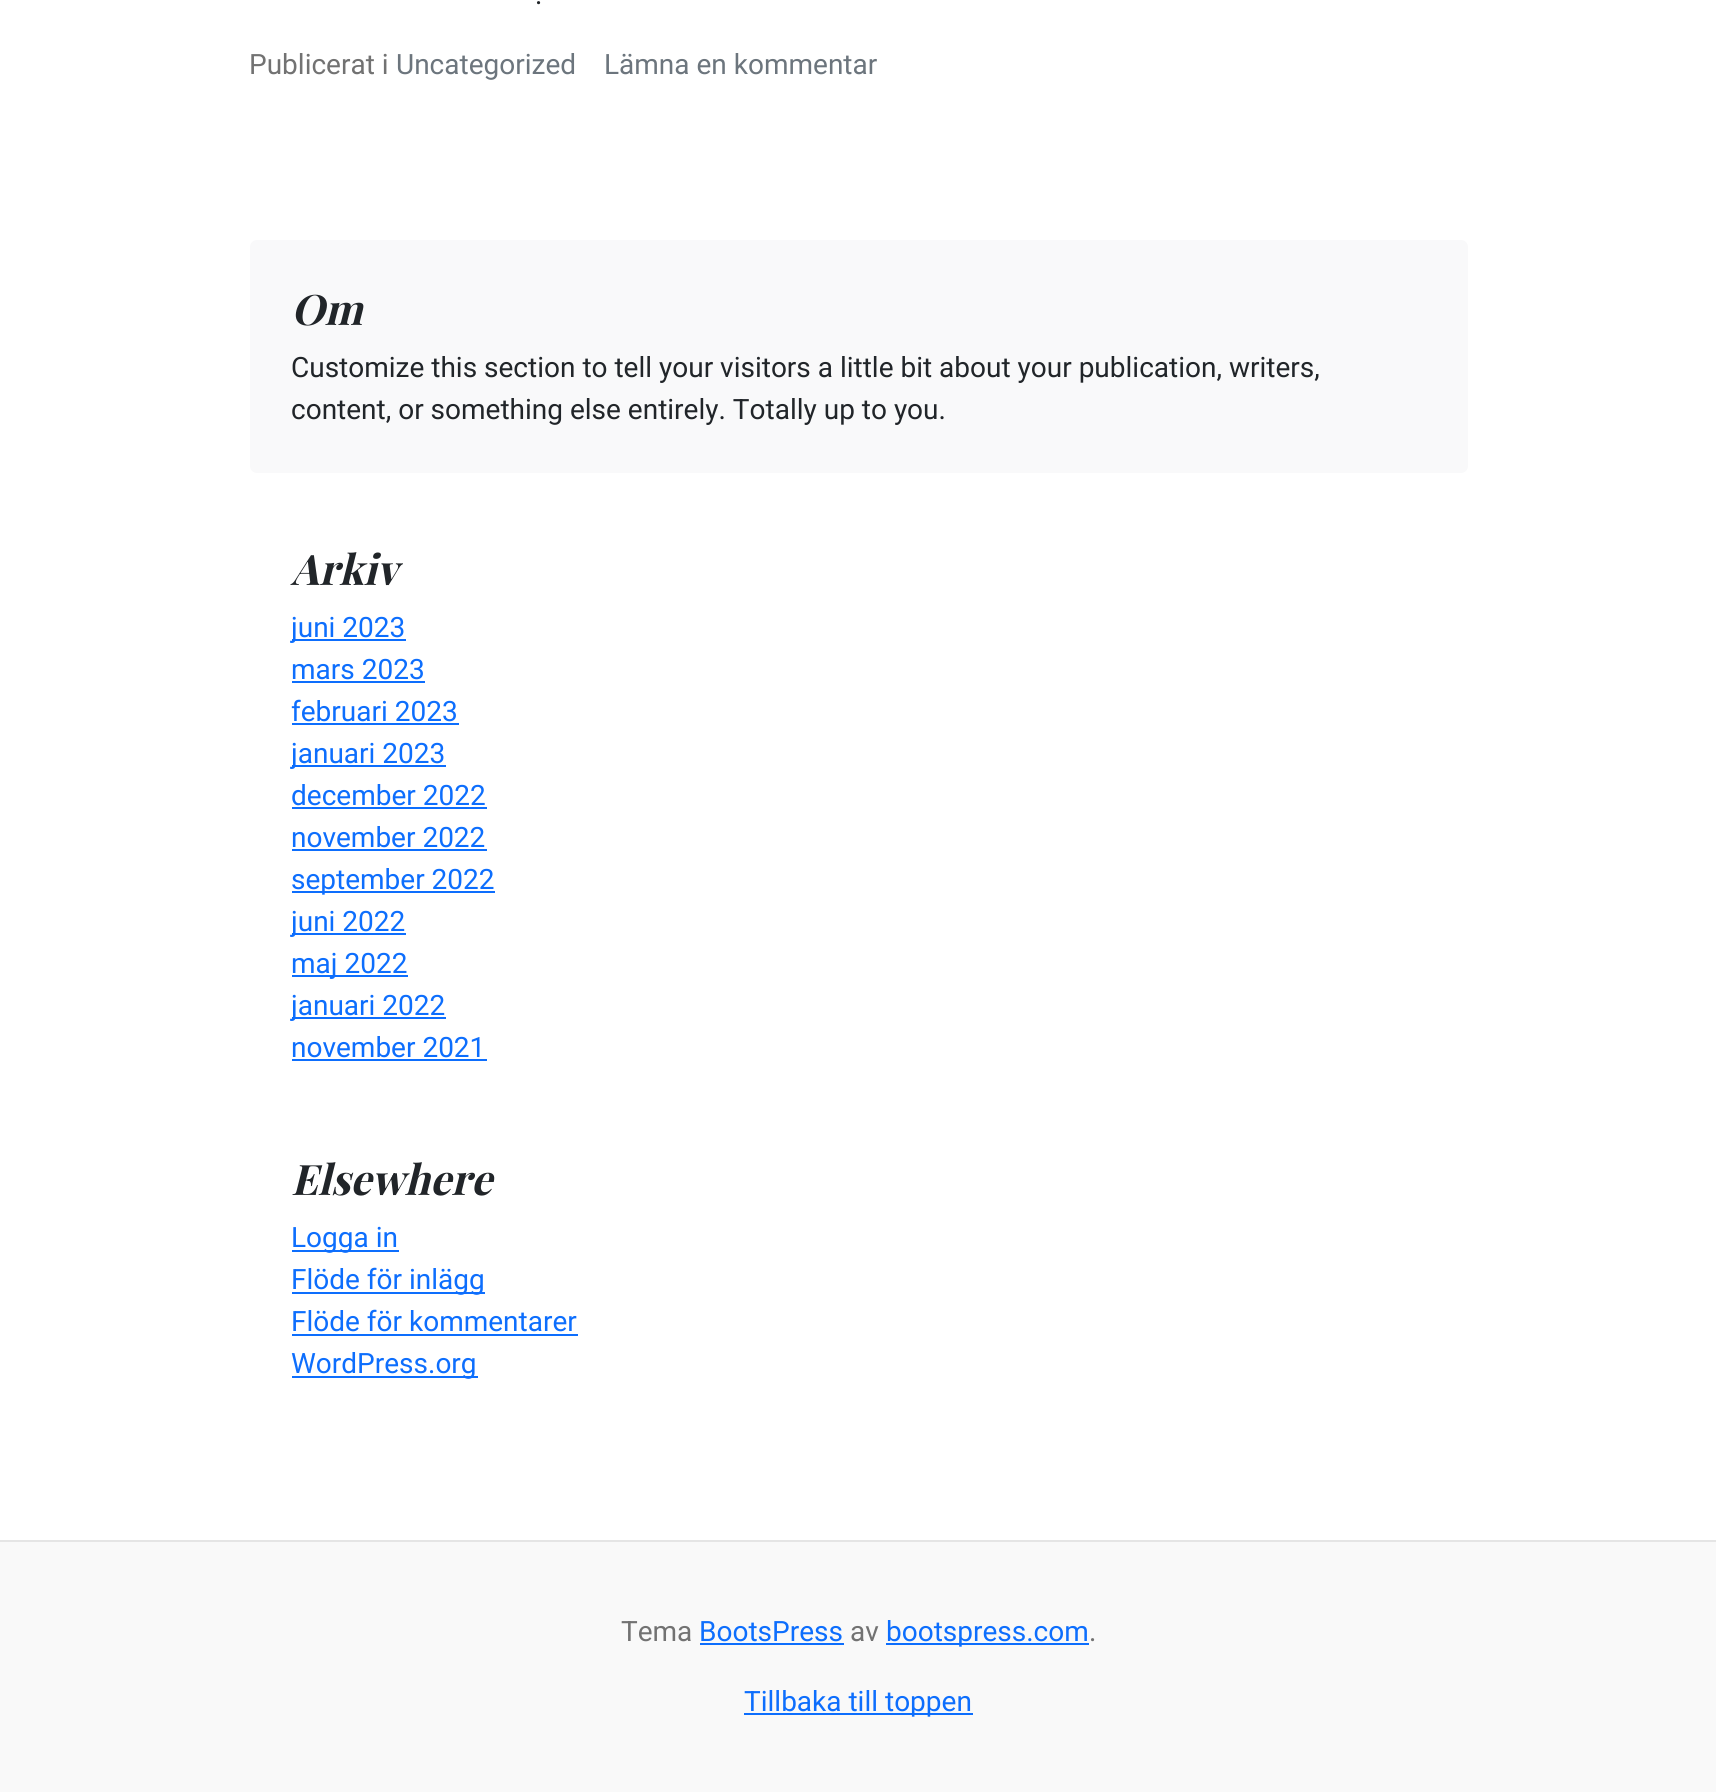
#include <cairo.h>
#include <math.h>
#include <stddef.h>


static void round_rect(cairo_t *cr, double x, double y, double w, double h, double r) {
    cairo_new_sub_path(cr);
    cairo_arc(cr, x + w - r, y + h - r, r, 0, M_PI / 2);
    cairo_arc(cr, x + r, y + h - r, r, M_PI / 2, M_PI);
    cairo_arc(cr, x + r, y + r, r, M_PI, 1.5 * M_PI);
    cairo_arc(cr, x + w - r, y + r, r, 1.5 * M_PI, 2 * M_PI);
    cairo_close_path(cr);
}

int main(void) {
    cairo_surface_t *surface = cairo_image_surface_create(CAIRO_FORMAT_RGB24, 1716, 1792);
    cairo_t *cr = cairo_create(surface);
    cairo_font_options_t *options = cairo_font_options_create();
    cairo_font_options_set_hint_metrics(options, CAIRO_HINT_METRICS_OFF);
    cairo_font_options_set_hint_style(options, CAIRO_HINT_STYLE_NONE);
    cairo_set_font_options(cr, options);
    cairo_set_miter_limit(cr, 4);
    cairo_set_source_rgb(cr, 1, 1, 1);
    cairo_paint(cr);
    cairo_select_font_face(cr, "Roboto", CAIRO_FONT_SLANT_NORMAL, CAIRO_FONT_WEIGHT_NORMAL);
    cairo_set_font_size(cr, 28);
    cairo_set_source_rgb(cr, 0.129, 0.145, 0.161);
    cairo_move_to(cr, 535, 4);
    cairo_show_text(cr, ".");
    cairo_set_source_rgb(cr, 0.447, 0.447, 0.447);
    cairo_move_to(cr, 249, 74);
    cairo_show_text(cr, "Publicerat i");
    cairo_set_source_rgb(cr, 0.424, 0.459, 0.49);
    cairo_move_to(cr, 396, 74);
    cairo_show_text(cr, "Uncategorized");
    cairo_move_to(cr, 604, 74);
    cairo_show_text(cr, "Lämna en kommentar");
    cairo_set_source_rgb(cr, 0.973, 0.976, 0.98);
    round_rect(cr, 250, 240, 1218, 233, 7);
    cairo_fill(cr);
    cairo_select_font_face(cr, "Playfair Display", CAIRO_FONT_SLANT_ITALIC, CAIRO_FONT_WEIGHT_BOLD);
    cairo_set_font_size(cr, 42);
    cairo_set_source_rgb(cr, 0.129, 0.145, 0.161);
    cairo_move_to(cr, 291, 325);
    cairo_show_text(cr, "Om");
    cairo_select_font_face(cr, "Roboto", CAIRO_FONT_SLANT_NORMAL, CAIRO_FONT_WEIGHT_NORMAL);
    cairo_set_font_size(cr, 28);
    cairo_move_to(cr, 291, 377);
    cairo_show_text(cr, "Customize this section to tell your visitors a little bit about your publication, writers,");
    cairo_move_to(cr, 291, 419);
    cairo_show_text(cr, "content, or something else entirely. Totally up to you.");
    cairo_select_font_face(cr, "Playfair Display", CAIRO_FONT_SLANT_ITALIC, CAIRO_FONT_WEIGHT_BOLD);
    cairo_set_font_size(cr, 42);
    cairo_move_to(cr, 291, 585);
    cairo_show_text(cr, "Arkiv");
    cairo_set_source_rgb(cr, 0.051, 0.431, 0.992);
    cairo_rectangle(cr, 292, 639, 114, 2);
    cairo_fill(cr);
    cairo_select_font_face(cr, "Roboto", CAIRO_FONT_SLANT_NORMAL, CAIRO_FONT_WEIGHT_NORMAL);
    cairo_set_font_size(cr, 28);
    cairo_move_to(cr, 291, 637);
    cairo_show_text(cr, "juni 2023");
    cairo_move_to(cr, 291, 679);
    cairo_show_text(cr, "mars 2023");
    cairo_rectangle(cr, 292, 681, 133, 2);
    cairo_fill(cr);
    cairo_move_to(cr, 291, 721);
    cairo_show_text(cr, "februari 2023");
    cairo_rectangle(cr, 292, 723, 167, 2);
    cairo_fill(cr);
    cairo_rectangle(cr, 292, 765, 154, 2);
    cairo_fill(cr);
    cairo_move_to(cr, 291, 763);
    cairo_show_text(cr, "januari 2023");
    cairo_move_to(cr, 291, 805);
    cairo_show_text(cr, "december 2022");
    cairo_rectangle(cr, 292, 807, 195, 2);
    cairo_fill(cr);
    cairo_move_to(cr, 291, 847);
    cairo_show_text(cr, "november 2022");
    cairo_rectangle(cr, 292, 849, 195, 2);
    cairo_fill(cr);
    cairo_rectangle(cr, 292, 891, 203, 2);
    cairo_fill(cr);
    cairo_move_to(cr, 291, 889);
    cairo_show_text(cr, "september 2022");
    cairo_rectangle(cr, 292, 933, 114, 2);
    cairo_fill(cr);
    cairo_move_to(cr, 291, 931);
    cairo_show_text(cr, "juni 2022");
    cairo_rectangle(cr, 292, 975, 116, 2);
    cairo_fill(cr);
    cairo_move_to(cr, 291, 973);
    cairo_show_text(cr, "maj 2022");
    cairo_rectangle(cr, 292, 1017, 154, 2);
    cairo_fill(cr);
    cairo_move_to(cr, 291, 1015);
    cairo_show_text(cr, "januari 2022");
    cairo_move_to(cr, 291, 1057);
    cairo_show_text(cr, "november 2021");
    cairo_rectangle(cr, 292, 1059, 195, 2);
    cairo_fill(cr);
    cairo_select_font_face(cr, "Playfair Display", CAIRO_FONT_SLANT_ITALIC, CAIRO_FONT_WEIGHT_BOLD);
    cairo_set_font_size(cr, 42);
    cairo_set_source_rgb(cr, 0.129, 0.145, 0.161);
    cairo_move_to(cr, 291, 1195);
    cairo_show_text(cr, "Elsewhere");
    cairo_set_source_rgb(cr, 0.051, 0.431, 0.992);
    cairo_rectangle(cr, 292, 1250, 107, 2);
    cairo_fill(cr);
    cairo_select_font_face(cr, "Roboto", CAIRO_FONT_SLANT_NORMAL, CAIRO_FONT_WEIGHT_NORMAL);
    cairo_set_font_size(cr, 28);
    cairo_move_to(cr, 291, 1247);
    cairo_show_text(cr, "Logga in");
    cairo_rectangle(cr, 292, 1292, 193, 2);
    cairo_fill(cr);
    cairo_move_to(cr, 291, 1289);
    cairo_show_text(cr, "Flöde för inlägg");
    cairo_move_to(cr, 291, 1331);
    cairo_show_text(cr, "Flöde för kommentarer");
    cairo_rectangle(cr, 292, 1334, 286, 2);
    cairo_fill(cr);
    cairo_rectangle(cr, 292, 1376, 186, 2);
    cairo_fill(cr);
    cairo_move_to(cr, 291, 1373);
    cairo_show_text(cr, "WordPress.org");
    cairo_set_source_rgb(cr, 0.976, 0.976, 0.976);
    cairo_rectangle(cr, 0, 1542, 1716, 250);
    cairo_fill(cr);
    cairo_set_source_rgb(cr, 0.898, 0.898, 0.898);
    cairo_rectangle(cr, 0, 1540, 1716, 2);
    cairo_fill(cr);
    cairo_set_source_rgb(cr, 0.447, 0.447, 0.447);
    cairo_move_to(cr, 621, 1641);
    cairo_show_text(cr, "Tema");
    cairo_set_source_rgb(cr, 0.051, 0.431, 0.992);
    cairo_move_to(cr, 699, 1641);
    cairo_show_text(cr, "BootsPress");
    cairo_rectangle(cr, 700, 1643, 144, 2);
    cairo_fill(cr);
    cairo_set_source_rgb(cr, 0.447, 0.447, 0.447);
    cairo_move_to(cr, 850, 1641);
    cairo_show_text(cr, "av");
    cairo_set_source_rgb(cr, 0.051, 0.431, 0.992);
    cairo_rectangle(cr, 886, 1643, 203, 2);
    cairo_fill(cr);
    cairo_move_to(cr, 886, 1641);
    cairo_show_text(cr, "bootspress.com");
    cairo_set_source_rgb(cr, 0.447, 0.447, 0.447);
    cairo_move_to(cr, 1089, 1641);
    cairo_show_text(cr, ".");
    cairo_set_source_rgb(cr, 0.051, 0.431, 0.992);
    cairo_rectangle(cr, 744, 1713, 229, 2);
    cairo_fill(cr);
    cairo_move_to(cr, 744, 1711);
    cairo_show_text(cr, "Tillbaka till toppen");
    cairo_surface_write_to_png(surface, "page.png");
    cairo_font_options_destroy(options);
    cairo_destroy(cr);
    cairo_surface_destroy(surface);
    return 0;
}
